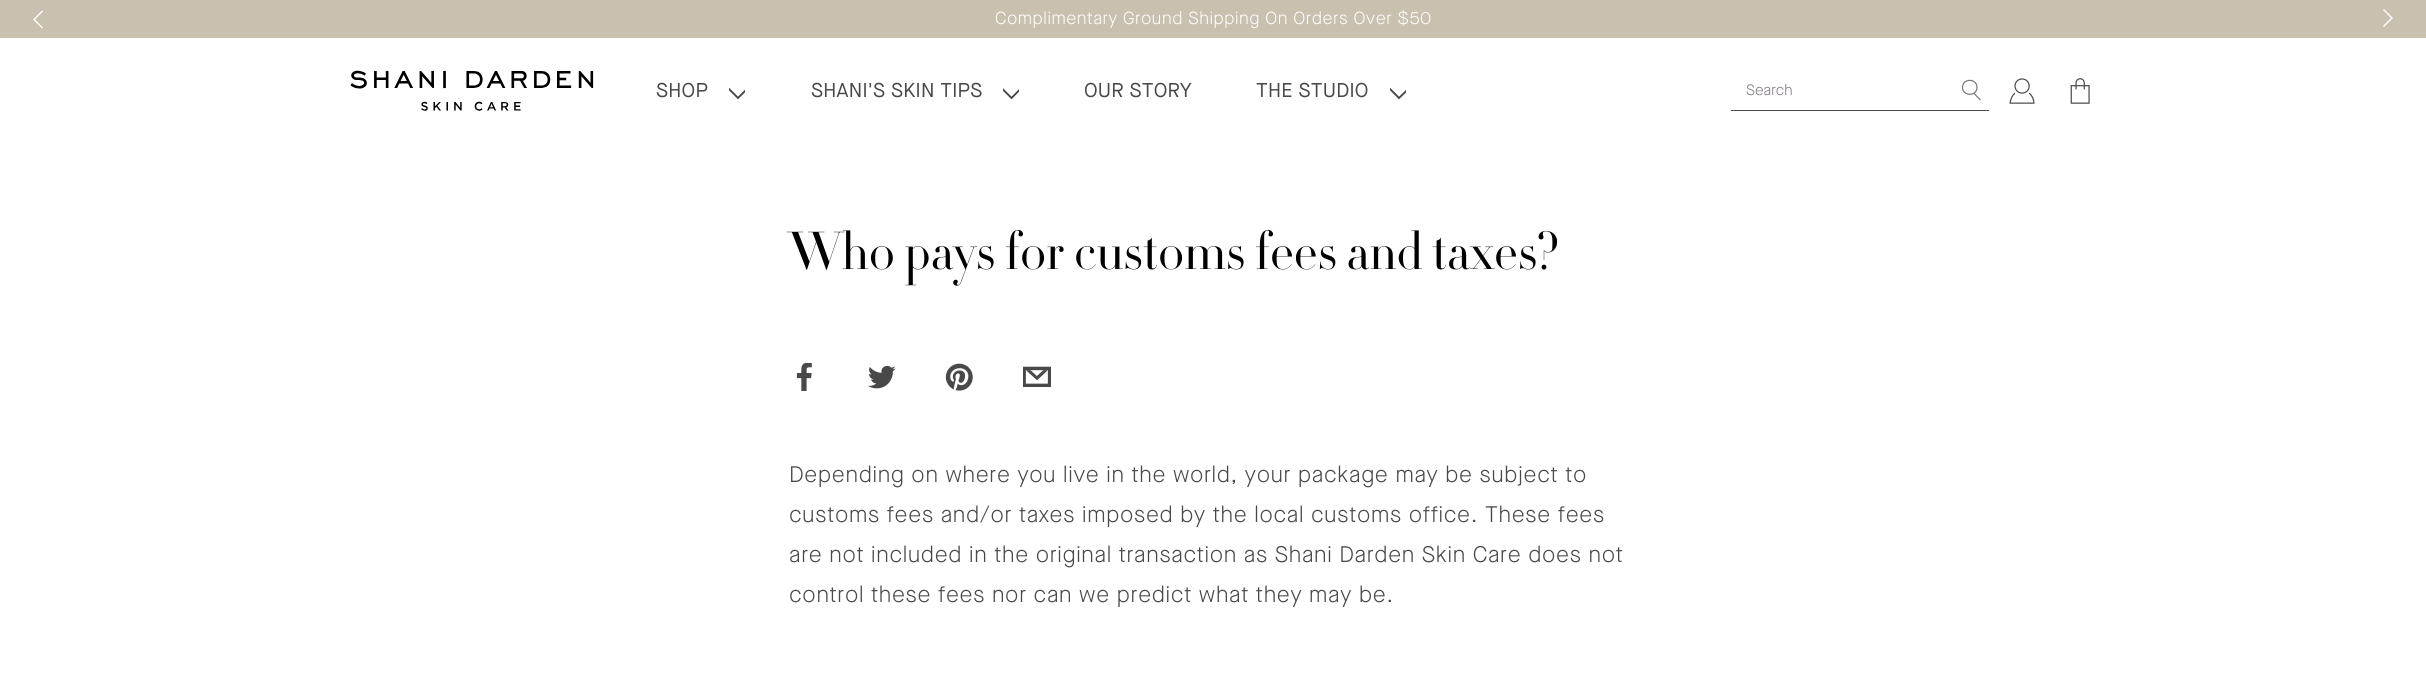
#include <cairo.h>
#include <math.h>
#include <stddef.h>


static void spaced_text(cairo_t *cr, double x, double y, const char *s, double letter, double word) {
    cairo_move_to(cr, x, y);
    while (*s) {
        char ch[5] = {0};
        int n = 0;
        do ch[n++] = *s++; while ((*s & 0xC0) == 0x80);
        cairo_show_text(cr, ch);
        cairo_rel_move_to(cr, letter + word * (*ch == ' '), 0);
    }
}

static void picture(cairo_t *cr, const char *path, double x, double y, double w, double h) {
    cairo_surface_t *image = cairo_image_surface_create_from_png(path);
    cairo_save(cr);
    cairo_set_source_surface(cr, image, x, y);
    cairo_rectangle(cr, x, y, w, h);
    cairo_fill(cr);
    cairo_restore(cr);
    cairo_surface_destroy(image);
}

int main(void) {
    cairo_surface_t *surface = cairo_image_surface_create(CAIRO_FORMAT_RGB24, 2426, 676);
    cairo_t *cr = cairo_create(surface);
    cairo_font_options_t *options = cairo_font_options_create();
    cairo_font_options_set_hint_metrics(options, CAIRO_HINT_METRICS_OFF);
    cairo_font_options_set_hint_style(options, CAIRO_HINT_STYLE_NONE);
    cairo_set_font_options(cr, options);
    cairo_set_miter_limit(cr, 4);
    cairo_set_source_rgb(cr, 1, 1, 1);
    cairo_paint(cr);
    cairo_set_source_rgb(cr, 0.788, 0.757, 0.69);
    cairo_rectangle(cr, 0, 0, 2426, 38);
    cairo_fill(cr);
    cairo_save(cr);
    cairo_new_path(cr);
    cairo_move_to(cr, 44.5, 3);
    cairo_line_to(cr, 44.5, 34.5);
    cairo_line_to(cr, 33, 34.5);
    cairo_line_to(cr, 33, 3);
    cairo_close_path(cr);
    cairo_clip(cr);
    cairo_new_path(cr);
    cairo_move_to(cr, 42.5, 11);
    cairo_line_to(cr, 34, 19.5);
    cairo_line_to(cr, 42.5, 28);
    cairo_set_source_rgb(cr, 1, 1, 1);
    cairo_set_line_width(cr, 1.4);
    cairo_stroke(cr);
    cairo_restore(cr);
    cairo_select_font_face(cr, "Maison Neue Light", CAIRO_FONT_SLANT_NORMAL, CAIRO_FONT_WEIGHT_NORMAL);
    cairo_set_font_size(cr, 17.5);
    cairo_set_source_rgb(cr, 1, 1, 1);
    spaced_text(cr, 995, 24, "Complimentary Ground Shipping On Orders Over $50", 0.55, 0);
    cairo_new_path(cr);
    cairo_move_to(cr, 2383.5, 26.5);
    cairo_line_to(cr, 2392, 18);
    cairo_line_to(cr, 2383.5, 9.5);
    cairo_set_line_width(cr, 1.4);
    cairo_stroke(cr);
    picture(cr, "img1.png", 350, 70, 244, 41);
    cairo_select_font_face(cr, "Maison Neue", CAIRO_FONT_SLANT_NORMAL, CAIRO_FONT_WEIGHT_NORMAL);
    cairo_set_font_size(cr, 20);
    cairo_set_source_rgb(cr, 0.29, 0.278, 0.29);
    spaced_text(cr, 656, 97, "SHOP", 0.25, 0);
    cairo_save(cr);
    cairo_rectangle(cr, 729, 79, 16, 25);
    cairo_clip(cr);
    cairo_new_path(cr);
    cairo_move_to(cr, 726, 86);
    cairo_line_to(cr, 738, 98);
    cairo_line_to(cr, 750, 86);
    cairo_set_line_width(cr, 1.9);
    cairo_stroke(cr);
    cairo_restore(cr);
    spaced_text(cr, 811, 97, "SHANI'S SKIN TIPS", 0.25, 0);
    cairo_save(cr);
    cairo_rectangle(cr, 1003, 79, 16, 25);
    cairo_clip(cr);
    cairo_new_path(cr);
    cairo_move_to(cr, 999.5, 86);
    cairo_line_to(cr, 1011.5, 98);
    cairo_line_to(cr, 1023.5, 86);
    cairo_set_line_width(cr, 1.9);
    cairo_stroke(cr);
    cairo_restore(cr);
    spaced_text(cr, 1084, 97, "OUR STORY", 0.25, 0);
    spaced_text(cr, 1256, 97, "THE STUDIO", 0.25, 0);
    cairo_save(cr);
    cairo_rectangle(cr, 1390, 79, 16, 25);
    cairo_clip(cr);
    cairo_new_path(cr);
    cairo_move_to(cr, 1387, 86);
    cairo_line_to(cr, 1399, 98);
    cairo_line_to(cr, 1411.5, 86);
    cairo_set_line_width(cr, 1.9);
    cairo_stroke(cr);
    cairo_restore(cr);
    cairo_rectangle(cr, 1731, 110, 258, 1);
    cairo_fill(cr);
    cairo_select_font_face(cr, "Maison Neue Light", CAIRO_FONT_SLANT_NORMAL, CAIRO_FONT_WEIGHT_NORMAL);
    cairo_set_font_size(cr, 15);
    cairo_set_source_rgb(cr, 0.486, 0.451, 0.498);
    cairo_move_to(cr, 1746, 95);
    cairo_show_text(cr, "Search");
    cairo_new_path(cr);
    cairo_move_to(cr, 1977, 87.5);
    cairo_curve_to(cr, 1977, 96.5, 1962.5, 96.5, 1962.5, 87.5);
    cairo_curve_to(cr, 1962.5, 78, 1977, 78, 1977, 87.5);
    cairo_close_path(cr);
    cairo_move_to(cr, 1980.5, 100);
    cairo_line_to(cr, 1974, 93.5);
    cairo_set_line_width(cr, 1.2);
    cairo_stroke(cr);
    picture(cr, "img2.png", 2009, 78, 26, 26);
    picture(cr, "img3.png", 2070, 78, 20, 26);
    cairo_select_font_face(cr, "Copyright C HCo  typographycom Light", CAIRO_FONT_SLANT_NORMAL, CAIRO_FONT_WEIGHT_NORMAL);
    cairo_set_font_size(cr, 52.5);
    cairo_set_source_rgb(cr, 0, 0, 0);
    cairo_move_to(cr, 789, 269);
    cairo_show_text(cr, "Who pays for customs fees and taxes?");
    picture(cr, "img4.png", 796, 363, 16, 28);
    picture(cr, "img5.png", 868, 365, 28, 24);
    picture(cr, "img6.png", 945, 363, 28, 28);
    picture(cr, "img7.png", 1023, 366, 28, 22);
    cairo_select_font_face(cr, "Maison Neue Light", CAIRO_FONT_SLANT_NORMAL, CAIRO_FONT_WEIGHT_NORMAL);
    cairo_set_font_size(cr, 22.5);
    cairo_set_source_rgb(cr, 0.29, 0.278, 0.29);
    spaced_text(cr, 789, 482, "Depending on where you live in the world, your package may be subject to", 0.7, 0);
    spaced_text(cr, 789, 522, "customs fees and/or taxes imposed by the local customs office. These fees", 0.7, 0);
    spaced_text(cr, 789, 562, "are not included in the original transaction as Shani Darden Skin Care does not", 0.7, 0);
    spaced_text(cr, 789, 602, "control these fees nor can we predict what they may be.", 0.7, 0);
    cairo_surface_write_to_png(surface, "page.png");
    cairo_font_options_destroy(options);
    cairo_destroy(cr);
    cairo_surface_destroy(surface);
    return 0;
}
